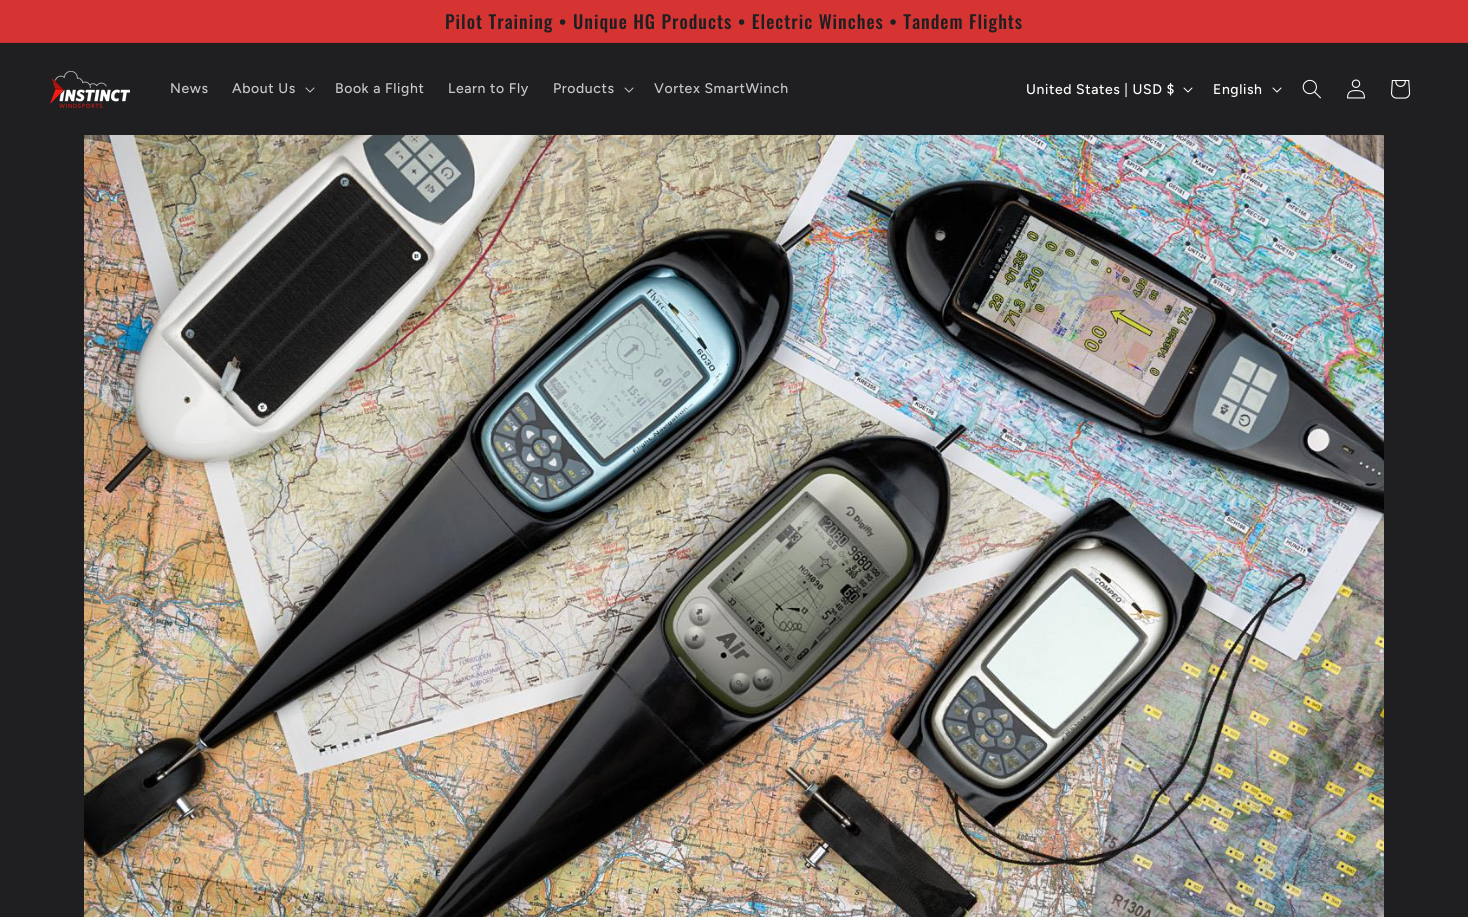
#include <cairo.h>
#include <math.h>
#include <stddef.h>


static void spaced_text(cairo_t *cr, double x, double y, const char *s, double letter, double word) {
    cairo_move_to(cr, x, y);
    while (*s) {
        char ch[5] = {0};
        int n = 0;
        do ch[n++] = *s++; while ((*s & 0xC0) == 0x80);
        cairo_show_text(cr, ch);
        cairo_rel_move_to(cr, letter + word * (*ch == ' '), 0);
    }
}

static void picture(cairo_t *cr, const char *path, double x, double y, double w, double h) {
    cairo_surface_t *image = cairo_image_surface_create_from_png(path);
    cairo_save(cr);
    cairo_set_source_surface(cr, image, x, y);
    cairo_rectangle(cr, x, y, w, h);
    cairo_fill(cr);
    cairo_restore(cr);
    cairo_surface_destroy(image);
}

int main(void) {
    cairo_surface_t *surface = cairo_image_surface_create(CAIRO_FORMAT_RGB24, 1468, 917);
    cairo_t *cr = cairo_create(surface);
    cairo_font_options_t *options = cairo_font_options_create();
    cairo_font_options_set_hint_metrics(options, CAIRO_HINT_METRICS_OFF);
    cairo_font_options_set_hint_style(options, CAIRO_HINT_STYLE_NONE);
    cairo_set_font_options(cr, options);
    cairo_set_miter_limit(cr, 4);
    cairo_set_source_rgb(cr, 0.122, 0.122, 0.129);
    cairo_paint(cr);
    cairo_set_source_rgb(cr, 0.839, 0.2, 0.2);
    cairo_rectangle(cr, 0, 0, 1468, 42);
    cairo_fill(cr);
    cairo_set_source_rgb(cr, 0.78, 0.192, 0.196);
    cairo_rectangle(cr, 0, 42, 1468, 1);
    cairo_fill(cr);
    cairo_select_font_face(cr, "Oswald Medium", CAIRO_FONT_SLANT_NORMAL, CAIRO_FONT_WEIGHT_NORMAL);
    cairo_set_font_size(cr, 18.2);
    cairo_set_source_rgb(cr, 0.122, 0.122, 0.129);
    spaced_text(cr, 445, 29, "Pilot Training • Unique HG Products • Electric Winches • Tandem Flights", 1, 0);
    picture(cr, "img1.png", 50, 71, 80, 37);
    cairo_select_font_face(cr, "Figtree Medium", CAIRO_FONT_SLANT_NORMAL, CAIRO_FONT_WEIGHT_NORMAL);
    cairo_set_font_size(cr, 14);
    cairo_set_source_rgb(cr, 0.78, 0.78, 0.784);
    spaced_text(cr, 170, 93, "News", 0.6, 0);
    spaced_text(cr, 232, 93, "About Us", 0.6, 0);
    picture(cr, "img2.png", 305, 87, 10, 6);
    spaced_text(cr, 335, 93, "Book a Flight", 0.6, 0);
    spaced_text(cr, 448, 93, "Learn to Fly", 0.6, 0);
    spaced_text(cr, 553, 93, "Products", 0.6, 0);
    picture(cr, "img2.png", 624, 87, 10, 6);
    spaced_text(cr, 654, 93, "Vortex SmartWinch", 0.6, 0);
    cairo_set_source_rgb(cr, 1, 1, 1);
    spaced_text(cr, 1026, 94, "United States | USD $", 0.6, 0);
    picture(cr, "img3.png", 1183, 87, 10, 6);
    spaced_text(cr, 1213, 94, "English", 0.6, 0);
    picture(cr, "img3.png", 1272, 87, 10, 6);
    picture(cr, "img4.png", 1302, 79, 19, 20);
    picture(cr, "img5.png", 1347, 79, 18, 20);
    picture(cr, "img6.png", 1391, 80, 20, 19);
    picture(cr, "img7.png", 84, 135, 1300, 782);
    cairo_surface_write_to_png(surface, "page.png");
    cairo_font_options_destroy(options);
    cairo_destroy(cr);
    cairo_surface_destroy(surface);
    return 0;
}
